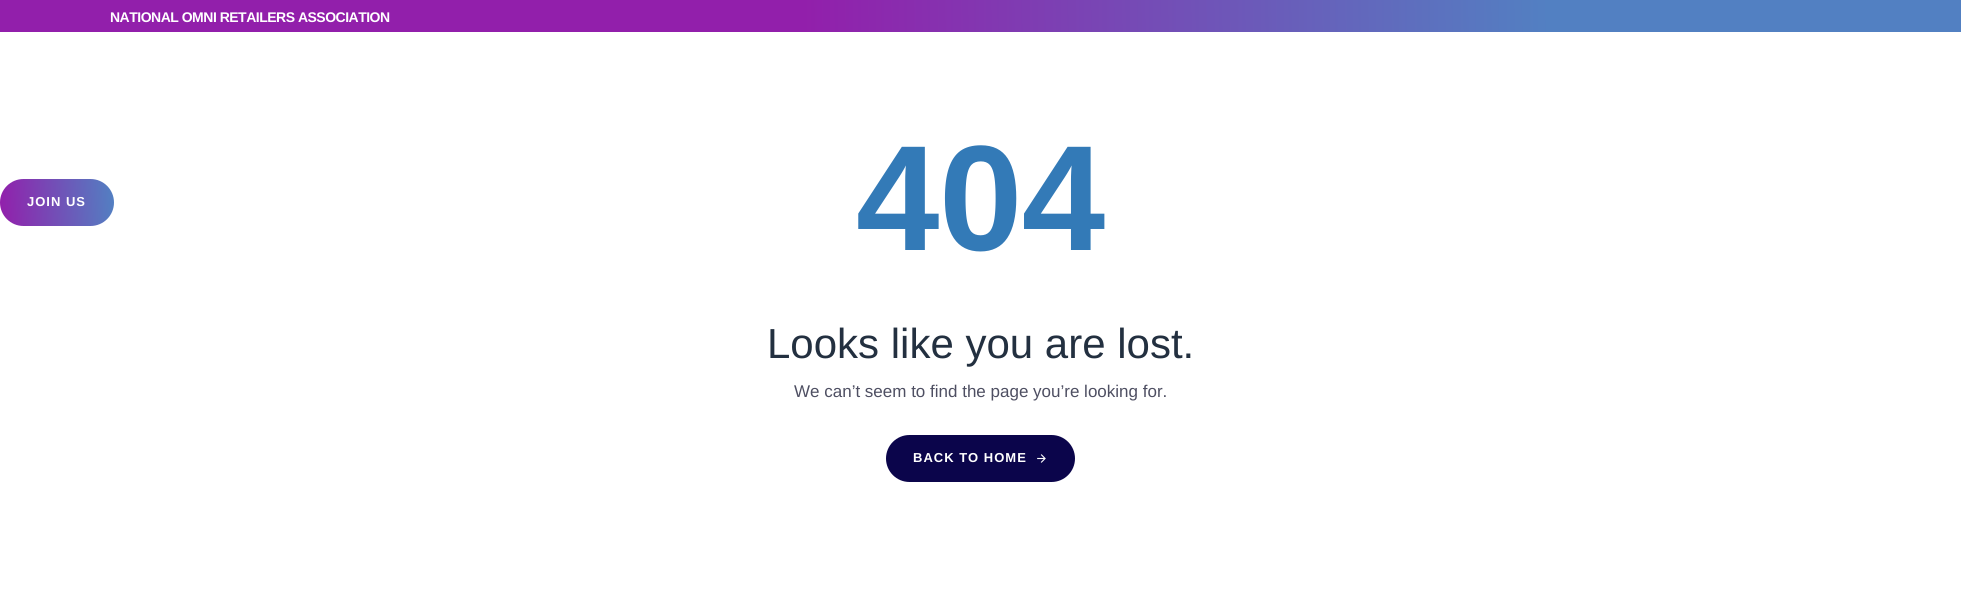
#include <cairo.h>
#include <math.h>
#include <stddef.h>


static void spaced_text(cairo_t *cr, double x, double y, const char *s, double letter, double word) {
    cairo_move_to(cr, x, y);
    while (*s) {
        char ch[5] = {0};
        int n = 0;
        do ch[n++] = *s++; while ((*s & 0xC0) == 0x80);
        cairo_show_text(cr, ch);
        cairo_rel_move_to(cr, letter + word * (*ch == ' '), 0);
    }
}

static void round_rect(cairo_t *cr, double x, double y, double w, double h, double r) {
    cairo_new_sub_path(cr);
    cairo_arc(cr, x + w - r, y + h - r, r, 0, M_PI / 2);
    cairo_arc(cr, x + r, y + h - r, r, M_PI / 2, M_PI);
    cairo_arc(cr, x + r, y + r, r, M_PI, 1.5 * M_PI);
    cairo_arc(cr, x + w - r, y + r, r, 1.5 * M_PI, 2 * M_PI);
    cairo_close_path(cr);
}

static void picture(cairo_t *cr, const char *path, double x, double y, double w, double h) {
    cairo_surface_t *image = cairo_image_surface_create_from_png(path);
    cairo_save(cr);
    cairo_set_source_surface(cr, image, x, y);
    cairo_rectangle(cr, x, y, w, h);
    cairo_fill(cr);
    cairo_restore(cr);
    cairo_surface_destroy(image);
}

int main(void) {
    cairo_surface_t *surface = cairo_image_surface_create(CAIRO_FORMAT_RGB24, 1961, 598);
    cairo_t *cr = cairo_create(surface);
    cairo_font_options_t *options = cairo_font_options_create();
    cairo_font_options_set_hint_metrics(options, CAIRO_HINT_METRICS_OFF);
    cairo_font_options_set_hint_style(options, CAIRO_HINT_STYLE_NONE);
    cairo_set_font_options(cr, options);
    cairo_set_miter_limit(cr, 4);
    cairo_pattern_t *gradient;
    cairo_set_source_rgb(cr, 1, 1, 1);
    cairo_paint(cr);
    gradient = cairo_pattern_create_linear(1961, -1.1, 0, 33);
    cairo_pattern_add_color_stop_rgba(gradient, 0.21, 0.322, 0.502, 0.761, 1);
    cairo_pattern_add_color_stop_rgba(gradient, 0.59, 0.573, 0.122, 0.671, 1);
    cairo_set_source(cr, gradient);
    cairo_pattern_destroy(gradient);
    cairo_rectangle(cr, 0, 0, 1961, 32);
    cairo_fill(cr);
    cairo_select_font_face(cr, "Liberation Sans", CAIRO_FONT_SLANT_NORMAL, CAIRO_FONT_WEIGHT_BOLD);
    cairo_set_font_size(cr, 14);
    cairo_set_source_rgb(cr, 1, 1, 1);
    spaced_text(cr, 110, 22, "NATIONAL OMNI RETAILERS ASSOCIATION", -0.5, 0);
    gradient = cairo_pattern_create_linear(115, 199, -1.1, 206);
    cairo_pattern_add_color_stop_rgba(gradient, 0, 0.322, 0.502, 0.761, 1);
    cairo_pattern_add_color_stop_rgba(gradient, 1, 0.573, 0.122, 0.671, 1);
    cairo_set_source(cr, gradient);
    cairo_pattern_destroy(gradient);
    round_rect(cr, 0, 179, 114, 47, 23.5);
    cairo_fill(cr);
    cairo_set_font_size(cr, 13);
    cairo_set_source_rgb(cr, 1, 1, 1);
    spaced_text(cr, 27, 206, "JOIN US", 1, 0);
    cairo_set_font_size(cr, 150);
    cairo_set_source_rgb(cr, 0.2, 0.478, 0.718);
    spaced_text(cr, 856, 250, "404", -0.5, 0);
    cairo_select_font_face(cr, "Liberation Sans", CAIRO_FONT_SLANT_NORMAL, CAIRO_FONT_WEIGHT_NORMAL);
    cairo_set_font_size(cr, 42);
    cairo_set_source_rgb(cr, 0.137, 0.188, 0.251);
    cairo_move_to(cr, 767, 358);
    cairo_show_text(cr, "Looks like you are lost.");
    cairo_set_font_size(cr, 17);
    cairo_set_source_rgb(cr, 0.306, 0.31, 0.384);
    cairo_move_to(cr, 794, 397);
    cairo_show_text(cr, "We can’t seem to find the page you’re looking for.");
    cairo_set_source_rgb(cr, 0.043, 0.02, 0.294);
    round_rect(cr, 886, 435, 189, 47, 23.5);
    cairo_fill(cr);
    cairo_select_font_face(cr, "Liberation Sans", CAIRO_FONT_SLANT_NORMAL, CAIRO_FONT_WEIGHT_BOLD);
    cairo_set_font_size(cr, 13);
    cairo_set_source_rgb(cr, 1, 1, 1);
    spaced_text(cr, 913, 462, "BACK TO HOME", 1, 0);
    picture(cr, "img1.png", 1037, 454, 9, 9);
    cairo_surface_write_to_png(surface, "page.png");
    cairo_font_options_destroy(options);
    cairo_destroy(cr);
    cairo_surface_destroy(surface);
    return 0;
}
